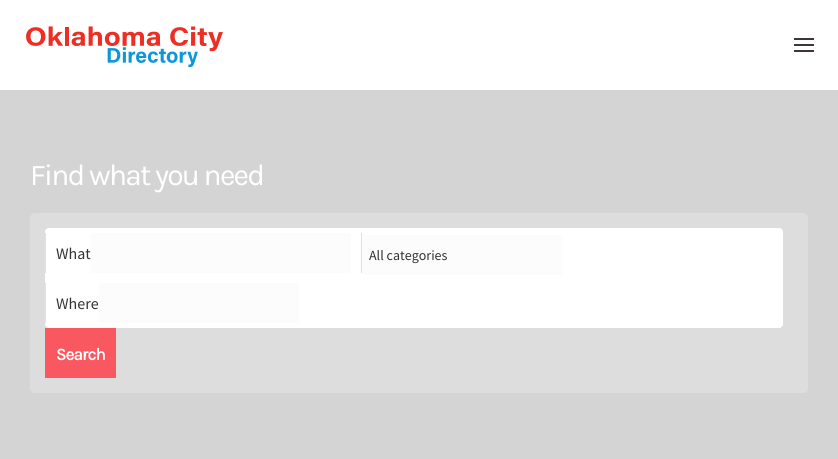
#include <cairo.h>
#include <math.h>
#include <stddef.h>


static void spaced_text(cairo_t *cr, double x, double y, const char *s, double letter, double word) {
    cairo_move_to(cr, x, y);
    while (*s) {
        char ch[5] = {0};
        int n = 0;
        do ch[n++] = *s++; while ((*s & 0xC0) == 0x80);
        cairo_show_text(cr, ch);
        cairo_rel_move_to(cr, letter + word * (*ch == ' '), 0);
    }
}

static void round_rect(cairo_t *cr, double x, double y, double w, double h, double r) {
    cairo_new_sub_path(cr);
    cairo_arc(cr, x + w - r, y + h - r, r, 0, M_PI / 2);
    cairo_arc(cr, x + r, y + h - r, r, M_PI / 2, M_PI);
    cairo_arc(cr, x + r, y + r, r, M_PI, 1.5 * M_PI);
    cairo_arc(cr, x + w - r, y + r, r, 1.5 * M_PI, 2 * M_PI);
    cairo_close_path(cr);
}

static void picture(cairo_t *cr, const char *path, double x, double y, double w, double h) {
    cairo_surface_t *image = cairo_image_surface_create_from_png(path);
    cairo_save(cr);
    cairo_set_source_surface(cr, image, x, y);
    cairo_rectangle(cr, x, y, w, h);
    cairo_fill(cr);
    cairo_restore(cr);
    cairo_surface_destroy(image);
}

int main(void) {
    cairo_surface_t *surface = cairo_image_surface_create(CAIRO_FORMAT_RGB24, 838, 459);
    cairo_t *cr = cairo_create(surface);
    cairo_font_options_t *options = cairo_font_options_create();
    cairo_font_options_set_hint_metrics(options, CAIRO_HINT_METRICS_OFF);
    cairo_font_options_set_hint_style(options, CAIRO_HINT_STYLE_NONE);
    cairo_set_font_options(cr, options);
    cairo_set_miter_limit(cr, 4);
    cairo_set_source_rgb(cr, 1, 1, 1);
    cairo_paint(cr);
    picture(cr, "img1.png", 26, 26, 197, 42);
    cairo_set_source_rgb(cr, 0.235, 0.216, 0.212);
    cairo_rectangle(cr, 794, 38, 20, 2);
    cairo_fill(cr);
    cairo_rectangle(cr, 794, 44, 20, 2);
    cairo_fill(cr);
    cairo_rectangle(cr, 794, 50, 20, 2);
    cairo_fill(cr);
    cairo_set_source_rgb(cr, 0.831, 0.831, 0.831);
    cairo_rectangle(cr, 0, 90, 838, 369);
    cairo_fill(cr);
    cairo_select_font_face(cr, "Karla", CAIRO_FONT_SLANT_NORMAL, CAIRO_FONT_WEIGHT_NORMAL);
    cairo_set_font_size(cr, 30);
    cairo_set_source_rgb(cr, 1, 1, 1);
    spaced_text(cr, 30, 185, "Find what you need", -1.75, 0);
    cairo_set_source_rgb(cr, 0.867, 0.867, 0.867);
    round_rect(cr, 30, 213, 778, 180, 5);
    cairo_fill(cr);
    cairo_set_source_rgb(cr, 1, 1, 1);
    round_rect(cr, 45, 228, 738, 100, 4);
    cairo_fill(cr);
    cairo_set_source_rgb(cr, 0.882, 0.882, 0.882);
    cairo_rectangle(cr, 45, 233, 1, 40);
    cairo_fill(cr);
    cairo_select_font_face(cr, "Source Sans Pro", CAIRO_FONT_SLANT_NORMAL, CAIRO_FONT_WEIGHT_NORMAL);
    cairo_set_font_size(cr, 16);
    cairo_set_source_rgb(cr, 0.2, 0.2, 0.2);
    cairo_move_to(cr, 56, 259);
    cairo_show_text(cr, "What");
    cairo_set_source_rgb(cr, 0.988, 0.988, 0.988);
    cairo_rectangle(cr, 91, 233, 260, 40);
    cairo_fill(cr);
    cairo_set_source_rgb(cr, 0.882, 0.882, 0.882);
    cairo_rectangle(cr, 361, 233, 1, 40);
    cairo_fill(cr);
    cairo_set_source_rgb(cr, 0.988, 0.988, 0.988);
    cairo_rectangle(cr, 362, 235, 200, 40);
    cairo_fill(cr);
    cairo_set_font_size(cr, 14);
    cairo_set_source_rgb(cr, 0.2, 0.2, 0.2);
    cairo_move_to(cr, 369, 260);
    cairo_show_text(cr, "All categories");
    cairo_set_source_rgb(cr, 0.882, 0.882, 0.882);
    cairo_rectangle(cr, 45, 283, 1, 40);
    cairo_fill(cr);
    cairo_set_font_size(cr, 16);
    cairo_set_source_rgb(cr, 0.2, 0.2, 0.2);
    cairo_move_to(cr, 56, 309);
    cairo_show_text(cr, "Where");
    cairo_set_source_rgb(cr, 0.988, 0.988, 0.988);
    cairo_rectangle(cr, 99, 283, 200, 40);
    cairo_fill(cr);
    cairo_set_source_rgb(cr, 0.976, 0.345, 0.376);
    cairo_rectangle(cr, 45, 328, 71, 50);
    cairo_fill(cr);
    cairo_select_font_face(cr, "Karla", CAIRO_FONT_SLANT_NORMAL, CAIRO_FONT_WEIGHT_BOLD);
    cairo_set_font_size(cr, 17);
    cairo_set_source_rgb(cr, 1, 1, 1);
    spaced_text(cr, 56, 360, "Search", -0.75, 0);
    cairo_surface_write_to_png(surface, "page.png");
    cairo_font_options_destroy(options);
    cairo_destroy(cr);
    cairo_surface_destroy(surface);
    return 0;
}
